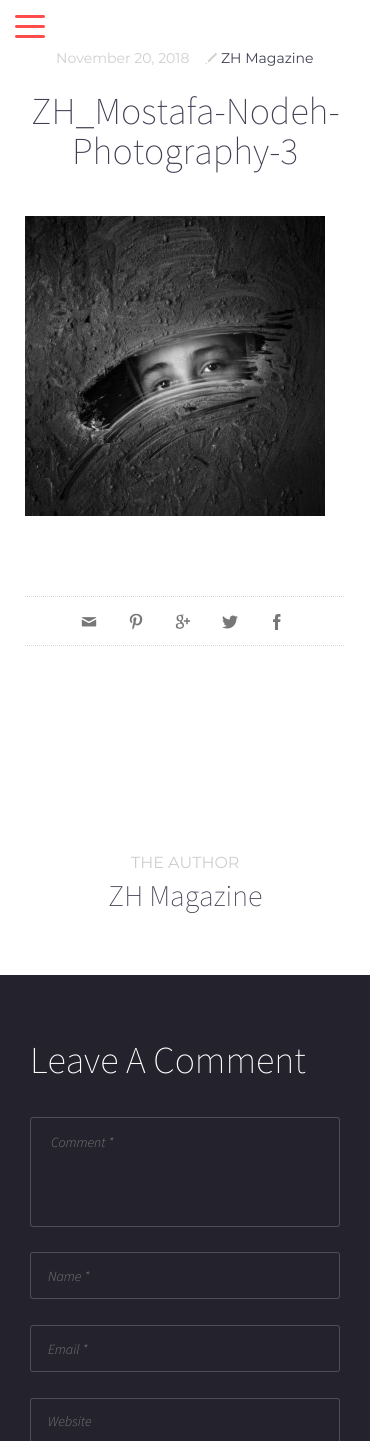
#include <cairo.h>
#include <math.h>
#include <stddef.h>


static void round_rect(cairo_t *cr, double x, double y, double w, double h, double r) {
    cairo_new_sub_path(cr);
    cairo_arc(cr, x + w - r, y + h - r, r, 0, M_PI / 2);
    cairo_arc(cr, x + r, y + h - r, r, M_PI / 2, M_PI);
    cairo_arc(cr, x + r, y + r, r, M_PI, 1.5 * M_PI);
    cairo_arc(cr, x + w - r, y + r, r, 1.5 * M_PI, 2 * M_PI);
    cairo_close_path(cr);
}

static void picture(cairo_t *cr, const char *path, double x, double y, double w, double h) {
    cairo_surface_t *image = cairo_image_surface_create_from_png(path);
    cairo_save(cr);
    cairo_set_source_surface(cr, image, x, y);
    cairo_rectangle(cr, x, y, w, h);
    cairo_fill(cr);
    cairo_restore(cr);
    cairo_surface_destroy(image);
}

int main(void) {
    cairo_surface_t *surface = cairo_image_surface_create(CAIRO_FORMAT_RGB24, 370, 1441);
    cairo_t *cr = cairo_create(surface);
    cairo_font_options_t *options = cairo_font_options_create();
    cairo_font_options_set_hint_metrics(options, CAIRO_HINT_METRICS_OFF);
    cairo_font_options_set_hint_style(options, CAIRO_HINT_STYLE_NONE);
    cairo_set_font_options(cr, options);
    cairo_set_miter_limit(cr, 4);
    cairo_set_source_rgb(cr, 1, 1, 1);
    cairo_paint(cr);
    cairo_set_source_rgb(cr, 1, 0.302, 0.302);
    round_rect(cr, 15, 25, 30, 3, 1.5);
    cairo_fill(cr);
    round_rect(cr, 15, 15, 30, 3, 1.5);
    cairo_fill(cr);
    round_rect(cr, 15, 35, 30, 3, 1.5);
    cairo_fill(cr);
    cairo_select_font_face(cr, "Montserrat Thin", CAIRO_FONT_SLANT_NORMAL, CAIRO_FONT_WEIGHT_NORMAL);
    cairo_set_font_size(cr, 14);
    cairo_set_source_rgb(cr, 0.808, 0.808, 0.808);
    cairo_move_to(cr, 56, 63);
    cairo_show_text(cr, "November 20, 2018");
    picture(cr, "img1.png", 205, 53, 12, 12);
    cairo_set_source_rgb(cr, 0.247, 0.247, 0.325);
    cairo_move_to(cr, 221, 63);
    cairo_show_text(cr, "ZH Magazine");
    cairo_select_font_face(cr, "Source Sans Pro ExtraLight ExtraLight", CAIRO_FONT_SLANT_NORMAL, CAIRO_FONT_WEIGHT_NORMAL);
    cairo_set_font_size(cr, 38);
    cairo_move_to(cr, 31, 124);
    cairo_show_text(cr, "ZH_Mostafa-Nodeh-");
    cairo_move_to(cr, 72, 164);
    cairo_show_text(cr, "Photography-3");
    picture(cr, "img2.png", 25, 216, 300, 300);
    cairo_new_path(cr);
    cairo_move_to(cr, 25, 596.5);
    cairo_line_to(cr, 345, 596.5);
    cairo_set_source_rgb(cr, 0.851, 0.851, 0.867);
    cairo_set_line_width(cr, 1);
    cairo_set_dash(cr, (double[]){1, 1}, 2, 0);
    cairo_stroke(cr);
    picture(cr, "img3.png", 81, 617, 16, 10);
    picture(cr, "img4.png", 129, 613, 14, 17);
    picture(cr, "img5.png", 175, 614, 16, 15);
    picture(cr, "img6.png", 222, 615, 16, 14);
    picture(cr, "img7.png", 273, 614, 8, 16);
    cairo_new_path(cr);
    cairo_move_to(cr, 25, 645.5);
    cairo_line_to(cr, 345, 645.5);
    cairo_stroke(cr);
    cairo_select_font_face(cr, "Montserrat Thin", CAIRO_FONT_SLANT_NORMAL, CAIRO_FONT_WEIGHT_NORMAL);
    cairo_set_font_size(cr, 16);
    cairo_set_source_rgb(cr, 0.808, 0.808, 0.808);
    cairo_move_to(cr, 131, 868);
    cairo_show_text(cr, "THE AUTHOR");
    cairo_select_font_face(cr, "Source Sans Pro ExtraLight ExtraLight", CAIRO_FONT_SLANT_NORMAL, CAIRO_FONT_WEIGHT_NORMAL);
    cairo_set_font_size(cr, 30);
    cairo_set_source_rgb(cr, 0.247, 0.247, 0.325);
    cairo_move_to(cr, 108, 906);
    cairo_show_text(cr, "ZH Magazine");
    cairo_set_source_rgb(cr, 0.137, 0.133, 0.176);
    cairo_rectangle(cr, 0, 975, 370, 466);
    cairo_fill(cr);
    cairo_set_font_size(cr, 38);
    cairo_set_source_rgb(cr, 1, 1, 1);
    cairo_move_to(cr, 30, 1073);
    cairo_show_text(cr, "Leave A Comment");
    round_rect(cr, 30.5, 1117.5, 309, 109, 2.5);
    cairo_set_source_rgb(cr, 0.31, 0.306, 0.341);
    cairo_set_dash(cr, NULL, 0, 0);
    cairo_stroke(cr);
    cairo_select_font_face(cr, "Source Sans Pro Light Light", CAIRO_FONT_SLANT_ITALIC, CAIRO_FONT_WEIGHT_NORMAL);
    cairo_set_font_size(cr, 14);
    cairo_set_source_rgb(cr, 0.467, 0.467, 0.467);
    cairo_move_to(cr, 51, 1147);
    cairo_show_text(cr, "Comment *");
    round_rect(cr, 30.5, 1252.5, 309, 46, 2.5);
    cairo_set_source_rgb(cr, 0.31, 0.306, 0.341);
    cairo_stroke(cr);
    cairo_set_source_rgb(cr, 0.467, 0.467, 0.467);
    cairo_move_to(cr, 48, 1281);
    cairo_show_text(cr, "Name *");
    round_rect(cr, 30.5, 1325.5, 309, 46, 2.5);
    cairo_set_source_rgb(cr, 0.31, 0.306, 0.341);
    cairo_stroke(cr);
    cairo_set_source_rgb(cr, 0.467, 0.467, 0.467);
    cairo_move_to(cr, 48, 1354);
    cairo_show_text(cr, "Email *");
    round_rect(cr, 30.5, 1398.5, 309, 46, 2.5);
    cairo_set_source_rgb(cr, 0.31, 0.306, 0.341);
    cairo_stroke(cr);
    cairo_set_source_rgb(cr, 0.467, 0.467, 0.467);
    cairo_move_to(cr, 48, 1426);
    cairo_show_text(cr, "Website");
    cairo_surface_write_to_png(surface, "page.png");
    cairo_font_options_destroy(options);
    cairo_destroy(cr);
    cairo_surface_destroy(surface);
    return 0;
}
